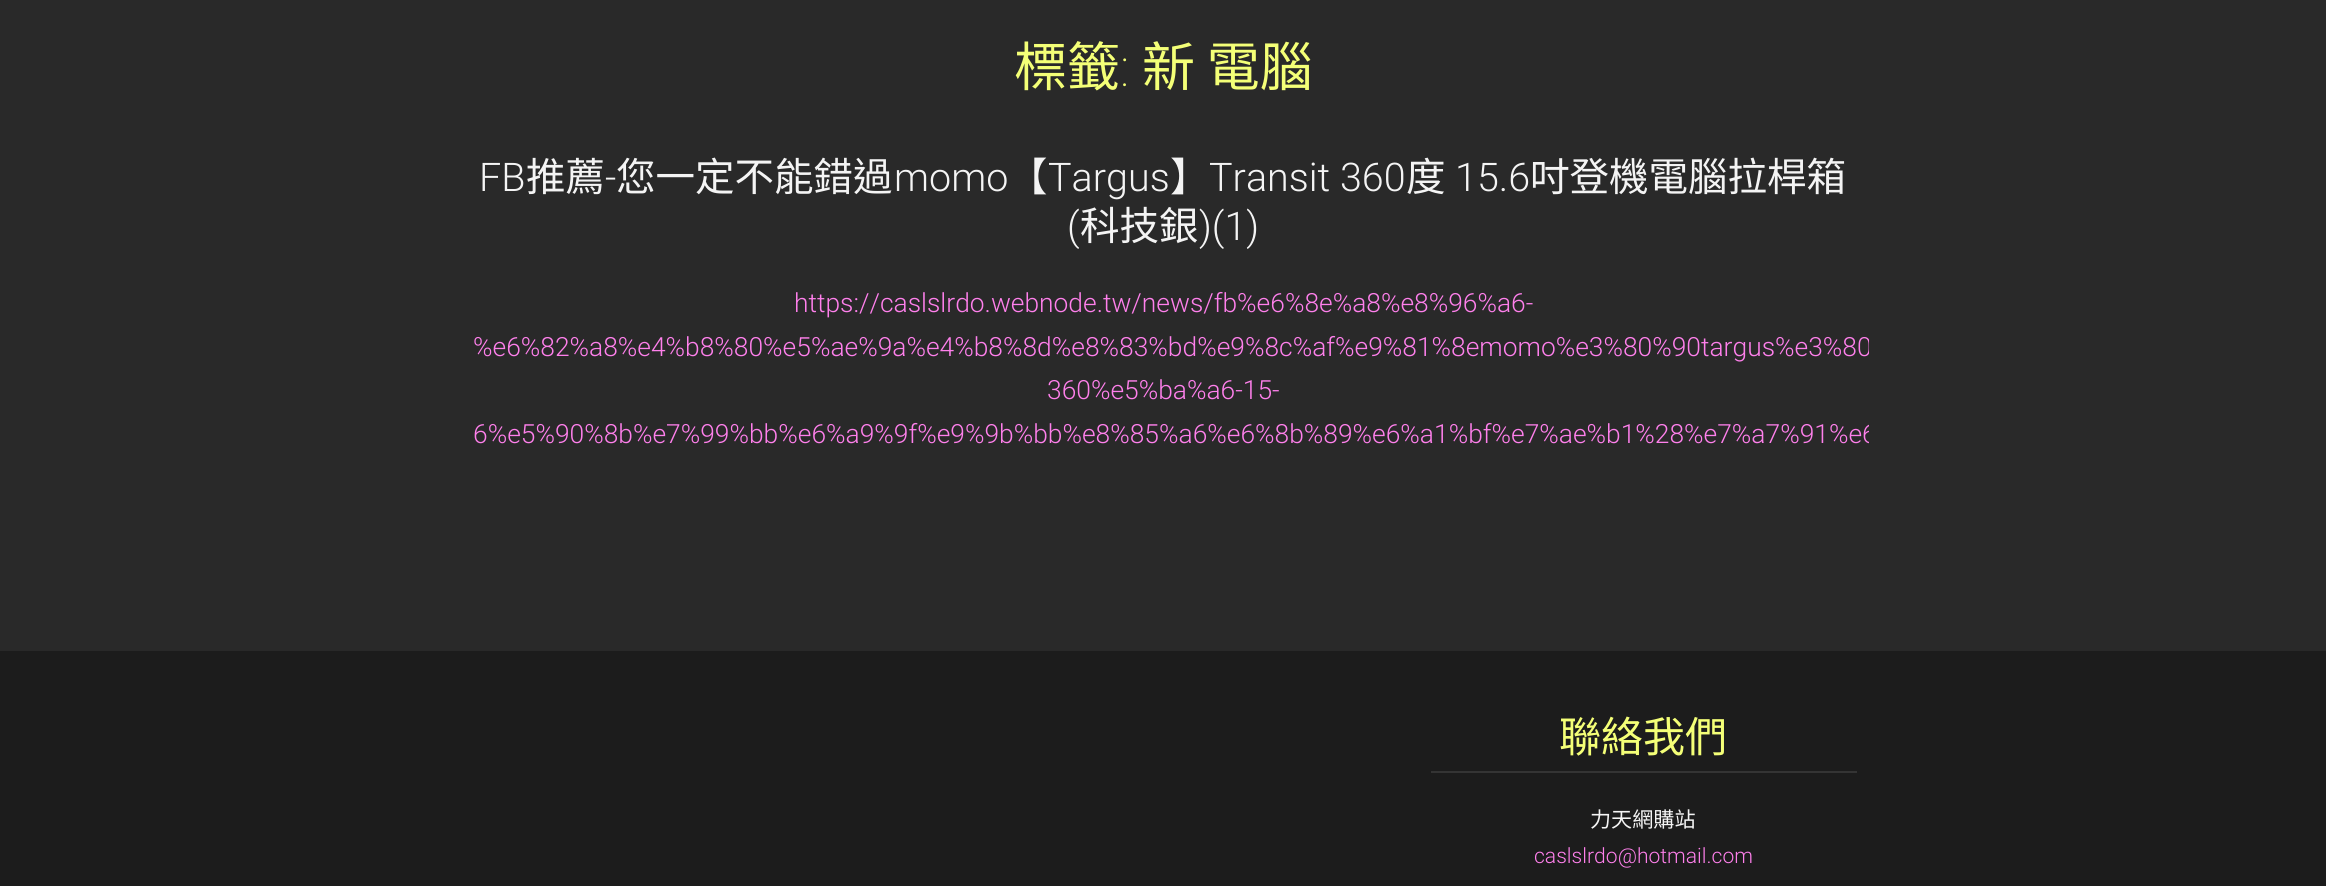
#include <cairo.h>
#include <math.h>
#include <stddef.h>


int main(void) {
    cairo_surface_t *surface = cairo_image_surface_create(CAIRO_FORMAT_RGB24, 2326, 886);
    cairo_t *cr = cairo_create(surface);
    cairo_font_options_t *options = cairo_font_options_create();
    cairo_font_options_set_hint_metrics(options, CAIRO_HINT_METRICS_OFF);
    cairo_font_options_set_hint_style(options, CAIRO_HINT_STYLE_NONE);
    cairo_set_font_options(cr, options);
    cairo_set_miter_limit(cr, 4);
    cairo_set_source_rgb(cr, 0.161, 0.161, 0.161);
    cairo_paint(cr);
    cairo_select_font_face(cr, "Noto Sans CJK TC", CAIRO_FONT_SLANT_NORMAL, CAIRO_FONT_WEIGHT_NORMAL);
    cairo_set_font_size(cr, 53);
    cairo_set_source_rgb(cr, 0.957, 1, 0.467);
    cairo_move_to(cr, 1014, 86);
    cairo_show_text(cr, "標籤");
    cairo_select_font_face(cr, "Roboto Thin", CAIRO_FONT_SLANT_NORMAL, CAIRO_FONT_WEIGHT_NORMAL);
    cairo_move_to(cr, 1120, 86);
    cairo_show_text(cr, ":");
    cairo_select_font_face(cr, "Noto Sans CJK TC", CAIRO_FONT_SLANT_NORMAL, CAIRO_FONT_WEIGHT_NORMAL);
    cairo_move_to(cr, 1142, 86);
    cairo_show_text(cr, "新 電腦");
    cairo_select_font_face(cr, "Roboto Light", CAIRO_FONT_SLANT_NORMAL, CAIRO_FONT_WEIGHT_NORMAL);
    cairo_set_font_size(cr, 39.5);
    cairo_set_source_rgb(cr, 0.957, 0.957, 0.957);
    cairo_move_to(cr, 479, 191);
    cairo_show_text(cr, "FB");
    cairo_select_font_face(cr, "Noto Sans CJK TC", CAIRO_FONT_SLANT_NORMAL, CAIRO_FONT_WEIGHT_NORMAL);
    cairo_move_to(cr, 526, 191);
    cairo_show_text(cr, "推薦");
    cairo_select_font_face(cr, "Roboto Light", CAIRO_FONT_SLANT_NORMAL, CAIRO_FONT_WEIGHT_NORMAL);
    cairo_move_to(cr, 605, 191);
    cairo_show_text(cr, "-");
    cairo_select_font_face(cr, "Noto Sans CJK TC", CAIRO_FONT_SLANT_NORMAL, CAIRO_FONT_WEIGHT_NORMAL);
    cairo_move_to(cr, 616, 191);
    cairo_show_text(cr, "您一定不能錯過");
    cairo_select_font_face(cr, "Roboto Light", CAIRO_FONT_SLANT_NORMAL, CAIRO_FONT_WEIGHT_NORMAL);
    cairo_move_to(cr, 894, 191);
    cairo_show_text(cr, "momo");
    cairo_select_font_face(cr, "Noto Sans CJK TC", CAIRO_FONT_SLANT_NORMAL, CAIRO_FONT_WEIGHT_NORMAL);
    cairo_move_to(cr, 1008, 191);
    cairo_show_text(cr, "【");
    cairo_select_font_face(cr, "Roboto Light", CAIRO_FONT_SLANT_NORMAL, CAIRO_FONT_WEIGHT_NORMAL);
    cairo_move_to(cr, 1048, 191);
    cairo_show_text(cr, "Targus");
    cairo_select_font_face(cr, "Noto Sans CJK TC", CAIRO_FONT_SLANT_NORMAL, CAIRO_FONT_WEIGHT_NORMAL);
    cairo_move_to(cr, 1170, 191);
    cairo_show_text(cr, "】");
    cairo_select_font_face(cr, "Roboto Light", CAIRO_FONT_SLANT_NORMAL, CAIRO_FONT_WEIGHT_NORMAL);
    cairo_move_to(cr, 1209, 191);
    cairo_show_text(cr, "Transit 360");
    cairo_select_font_face(cr, "Noto Sans CJK TC", CAIRO_FONT_SLANT_NORMAL, CAIRO_FONT_WEIGHT_NORMAL);
    cairo_move_to(cr, 1406, 191);
    cairo_show_text(cr, "度");
    cairo_select_font_face(cr, "Roboto Light", CAIRO_FONT_SLANT_NORMAL, CAIRO_FONT_WEIGHT_NORMAL);
    cairo_move_to(cr, 1455, 191);
    cairo_show_text(cr, "15.6");
    cairo_select_font_face(cr, "Noto Sans CJK TC", CAIRO_FONT_SLANT_NORMAL, CAIRO_FONT_WEIGHT_NORMAL);
    cairo_move_to(cr, 1530, 191);
    cairo_show_text(cr, "吋登機電腦拉桿箱");
    cairo_select_font_face(cr, "Roboto Light", CAIRO_FONT_SLANT_NORMAL, CAIRO_FONT_WEIGHT_NORMAL);
    cairo_move_to(cr, 1067, 240);
    cairo_show_text(cr, "(");
    cairo_select_font_face(cr, "Noto Sans CJK TC", CAIRO_FONT_SLANT_NORMAL, CAIRO_FONT_WEIGHT_NORMAL);
    cairo_move_to(cr, 1080, 240);
    cairo_show_text(cr, "科技銀");
    cairo_select_font_face(cr, "Roboto Light", CAIRO_FONT_SLANT_NORMAL, CAIRO_FONT_WEIGHT_NORMAL);
    cairo_move_to(cr, 1199, 240);
    cairo_show_text(cr, ")(1)");
    cairo_set_font_size(cr, 26.4);
    cairo_set_source_rgb(cr, 1, 0.502, 0.922);
    cairo_move_to(cr, 794, 312);
    cairo_show_text(cr, "https://caslslrdo.webnode.tw/news/fb%e6%8e%a8%e8%96%a6-");
    cairo_save(cr);
    cairo_rectangle(cr, 459, 35, 1410, 496);
    cairo_clip(cr);
    cairo_move_to(cr, 473, 356);
    cairo_show_text(cr, "%e6%82%a8%e4%b8%80%e5%ae%9a%e4%b8%8d%e8%83%bd%e9%8c%af%e9%81%8emomo%e3%80%90targus%e3%80");
    cairo_restore(cr);
    cairo_move_to(cr, 1047, 399);
    cairo_show_text(cr, "360%e5%ba%a6-15-");
    cairo_save(cr);
    cairo_rectangle(cr, 459, 35, 1410, 496);
    cairo_clip(cr);
    cairo_move_to(cr, 473, 443);
    cairo_show_text(cr, "6%e5%90%8b%e7%99%bb%e6%a9%9f%e9%9b%bb%e8%85%a6%e6%8b%89%e6%a1%bf%e7%ae%b1%28%e7%a7%91%e6");
    cairo_restore(cr);
    cairo_set_source_rgb(cr, 0.11, 0.11, 0.11);
    cairo_rectangle(cr, 0, 651, 2326, 235);
    cairo_fill(cr);
    cairo_set_source_rgb(cr, 0.204, 0.204, 0.204);
    cairo_rectangle(cr, 1431, 771, 426, 2);
    cairo_fill(cr);
    cairo_select_font_face(cr, "Noto Sans CJK TC", CAIRO_FONT_SLANT_NORMAL, CAIRO_FONT_WEIGHT_NORMAL);
    cairo_set_font_size(cr, 42);
    cairo_set_source_rgb(cr, 0.957, 1, 0.467);
    cairo_move_to(cr, 1559, 752);
    cairo_show_text(cr, "聯絡我們");
    cairo_set_font_size(cr, 21.1);
    cairo_set_source_rgb(cr, 0.957, 0.957, 0.957);
    cairo_move_to(cr, 1590, 827);
    cairo_show_text(cr, "力天網購站");
    cairo_select_font_face(cr, "Roboto Light", CAIRO_FONT_SLANT_NORMAL, CAIRO_FONT_WEIGHT_NORMAL);
    cairo_set_source_rgb(cr, 1, 0.502, 0.922);
    cairo_move_to(cr, 1534, 863);
    cairo_show_text(cr, "caslslrdo@hotmail.com");
    cairo_surface_write_to_png(surface, "page.png");
    cairo_font_options_destroy(options);
    cairo_destroy(cr);
    cairo_surface_destroy(surface);
    return 0;
}
